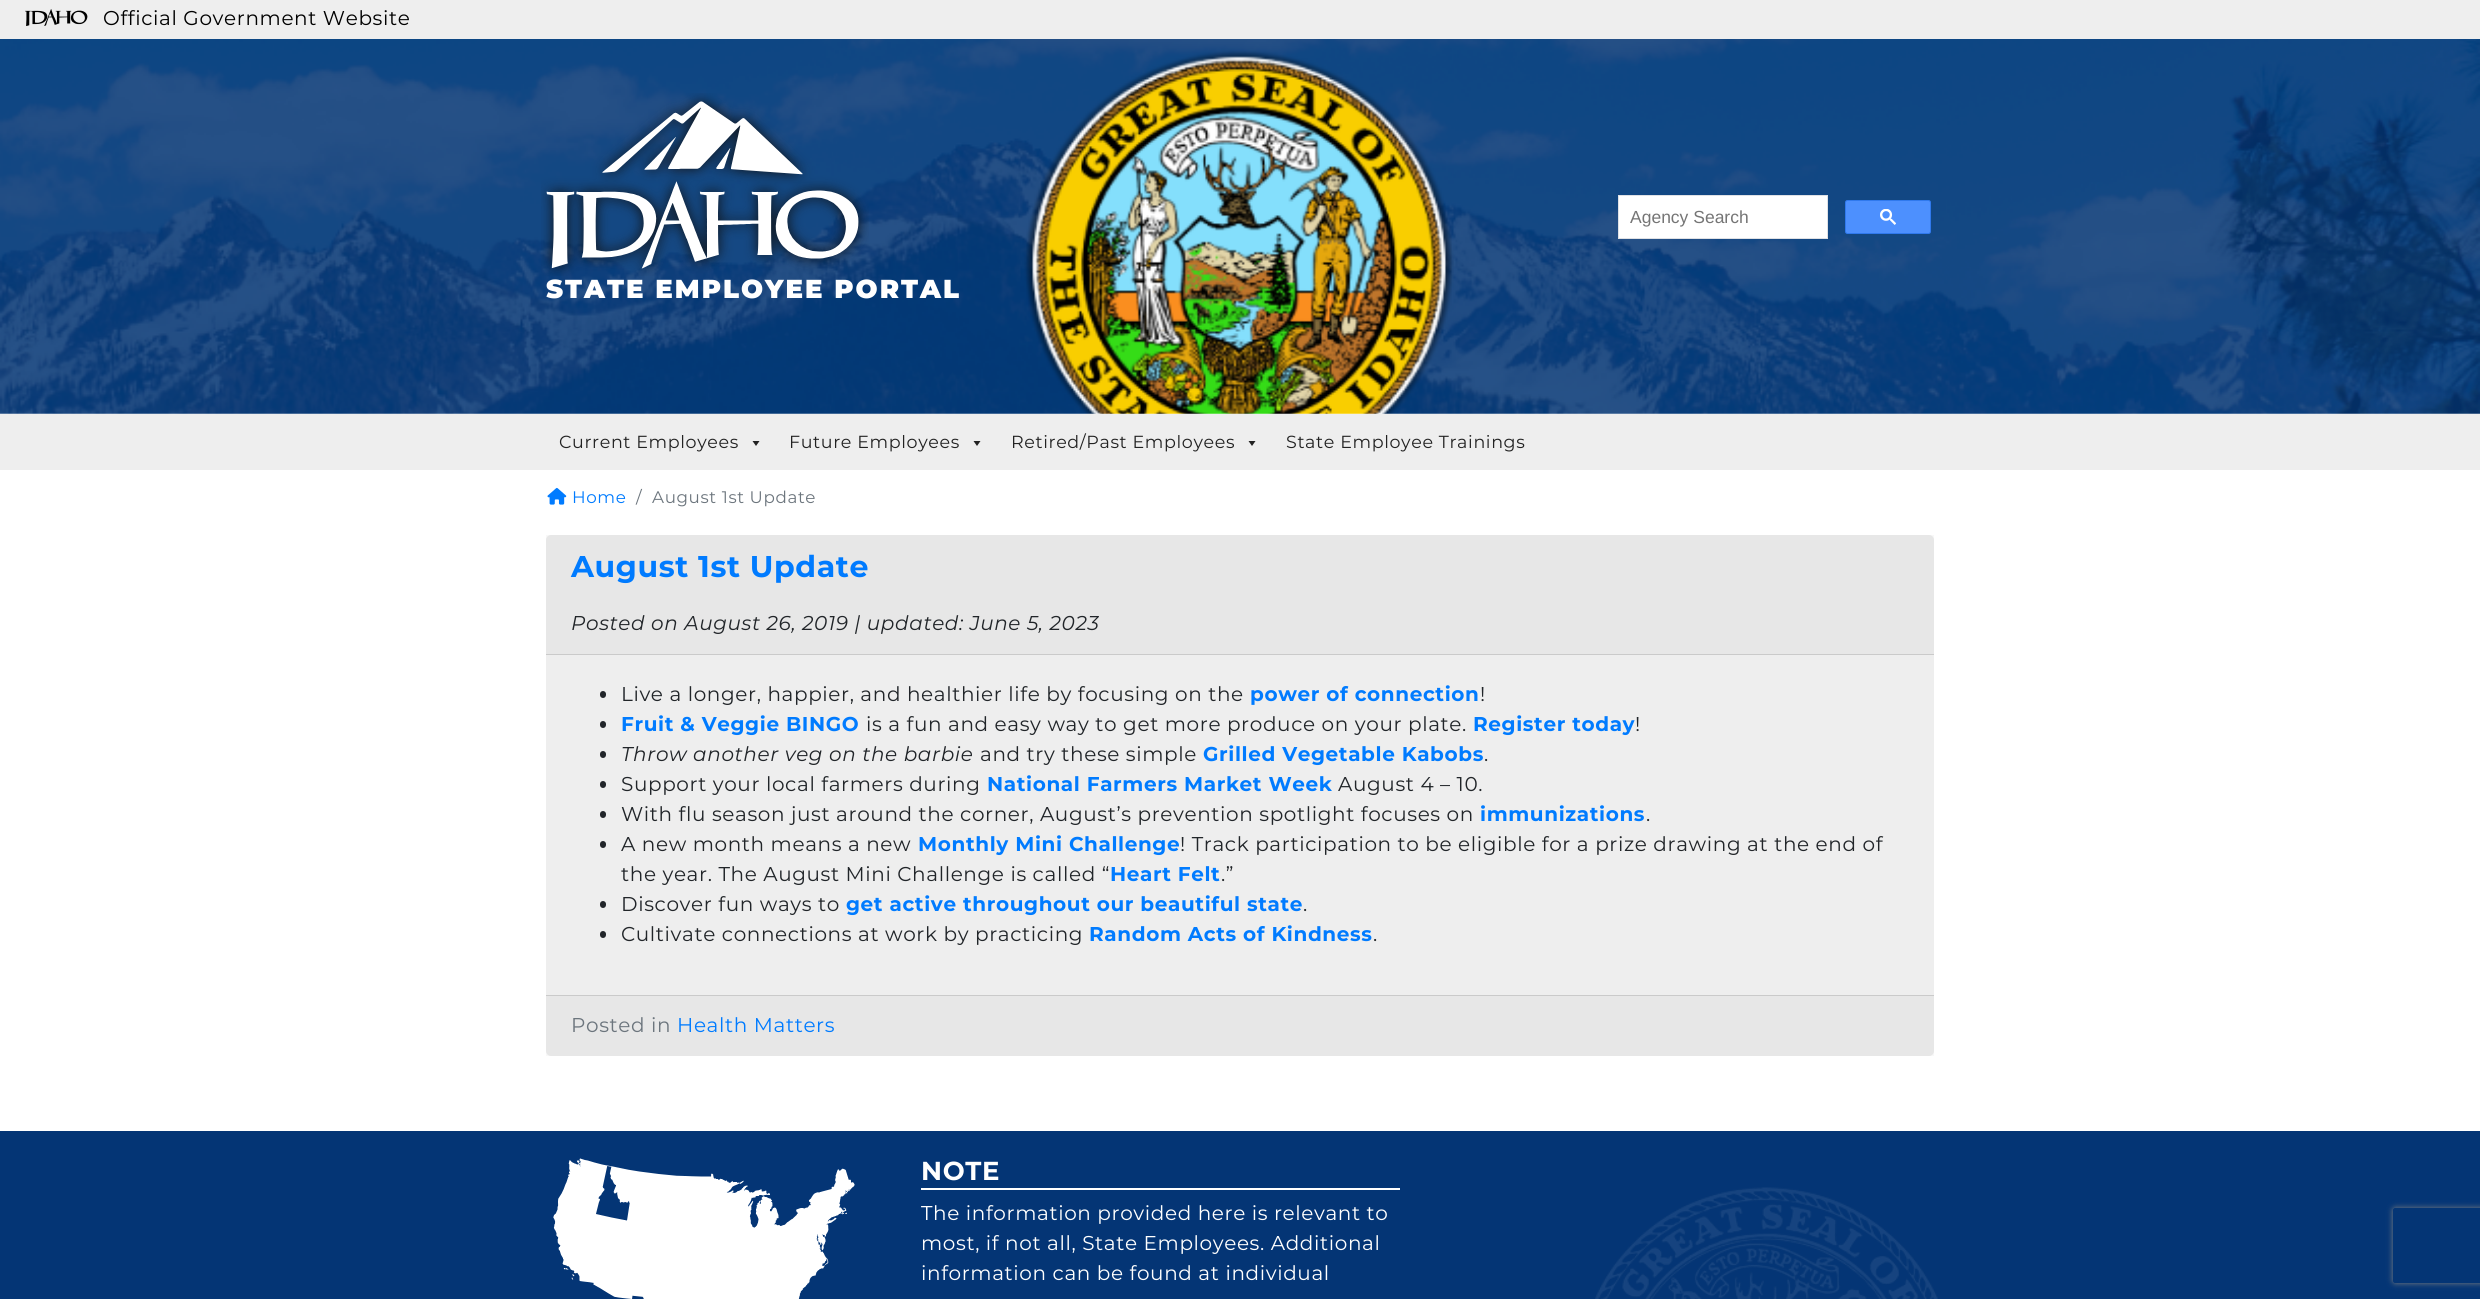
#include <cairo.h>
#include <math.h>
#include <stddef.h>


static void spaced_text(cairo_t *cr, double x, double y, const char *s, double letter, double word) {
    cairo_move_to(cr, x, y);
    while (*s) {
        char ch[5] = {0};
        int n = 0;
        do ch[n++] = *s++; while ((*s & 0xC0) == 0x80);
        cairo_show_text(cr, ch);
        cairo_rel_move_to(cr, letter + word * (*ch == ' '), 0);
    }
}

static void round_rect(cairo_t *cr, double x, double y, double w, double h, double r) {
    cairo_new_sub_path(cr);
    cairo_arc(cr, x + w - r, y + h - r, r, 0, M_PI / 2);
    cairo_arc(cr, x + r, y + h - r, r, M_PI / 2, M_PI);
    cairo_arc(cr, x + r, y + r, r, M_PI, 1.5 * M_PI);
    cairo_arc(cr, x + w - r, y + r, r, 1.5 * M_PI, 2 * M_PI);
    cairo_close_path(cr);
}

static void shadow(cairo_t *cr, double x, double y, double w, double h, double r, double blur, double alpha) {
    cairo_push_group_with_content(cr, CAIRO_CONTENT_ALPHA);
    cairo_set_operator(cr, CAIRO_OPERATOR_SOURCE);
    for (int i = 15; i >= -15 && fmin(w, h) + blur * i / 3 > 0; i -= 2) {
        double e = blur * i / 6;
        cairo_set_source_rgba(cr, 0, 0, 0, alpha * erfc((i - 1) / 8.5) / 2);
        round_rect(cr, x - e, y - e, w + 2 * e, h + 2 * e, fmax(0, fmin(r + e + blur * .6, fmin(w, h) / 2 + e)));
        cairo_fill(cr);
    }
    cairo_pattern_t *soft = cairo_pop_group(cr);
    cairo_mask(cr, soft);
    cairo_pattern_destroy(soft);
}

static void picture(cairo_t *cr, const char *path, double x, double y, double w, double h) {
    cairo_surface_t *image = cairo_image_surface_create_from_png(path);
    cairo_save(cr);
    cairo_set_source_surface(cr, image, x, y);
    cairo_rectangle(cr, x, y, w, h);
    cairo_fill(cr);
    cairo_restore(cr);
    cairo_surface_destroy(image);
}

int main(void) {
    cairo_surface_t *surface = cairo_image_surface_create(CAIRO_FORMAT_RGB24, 2480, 1299);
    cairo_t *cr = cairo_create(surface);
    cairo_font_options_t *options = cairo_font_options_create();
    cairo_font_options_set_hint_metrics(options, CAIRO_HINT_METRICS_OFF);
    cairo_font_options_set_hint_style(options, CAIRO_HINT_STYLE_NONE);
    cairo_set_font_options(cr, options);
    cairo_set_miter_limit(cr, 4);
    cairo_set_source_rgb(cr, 1, 1, 1);
    cairo_paint(cr);
    cairo_set_source_rgb(cr, 0.933, 0.933, 0.933);
    cairo_rectangle(cr, 0, 0, 2480, 39);
    cairo_fill(cr);
    picture(cr, "img1.png", 25, 9, 63, 17);
    cairo_select_font_face(cr, "Montserrat", CAIRO_FONT_SLANT_NORMAL, CAIRO_FONT_WEIGHT_NORMAL);
    cairo_set_font_size(cr, 20);
    cairo_set_source_rgb(cr, 0, 0, 0);
    spaced_text(cr, 103, 25, "Official Government Website", 0.62, 0);
    picture(cr, "img2.png", 0, 39, 2480, 375);
    cairo_set_source_rgb(cr, 1, 1, 1);
    cairo_rectangle(cr, 1618.5, 195.5, 209, 43);
    cairo_fill_preserve(cr);
    cairo_set_source_rgb(cr, 0.875, 0.882, 0.898);
    cairo_set_line_width(cr, 1);
    cairo_stroke(cr);
    cairo_select_font_face(cr, "Liberation Sans", CAIRO_FONT_SLANT_NORMAL, CAIRO_FONT_WEIGHT_NORMAL);
    cairo_set_font_size(cr, 17.5);
    cairo_set_source_rgb(cr, 0.459, 0.459, 0.459);
    cairo_move_to(cr, 1630, 223);
    cairo_show_text(cr, "Agency Search");
    cairo_set_source_rgb(cr, 0.302, 0.565, 0.996);
    round_rect(cr, 1845.5, 200.5, 85, 33, 2);
    cairo_fill_preserve(cr);
    cairo_set_source_rgb(cr, 0.188, 0.475, 0.929);
    cairo_stroke(cr);
    picture(cr, "img3.png", 1880, 209, 16, 16);
    picture(cr, "img4.png", 541, 93, 328, 183);
    cairo_select_font_face(cr, "Montserrat Black", CAIRO_FONT_SLANT_NORMAL, CAIRO_FONT_WEIGHT_NORMAL);
    cairo_set_font_size(cr, 26);
    cairo_set_source_rgb(cr, 1, 1, 1);
    spaced_text(cr, 546, 298, "STATE EMPLOYEE PORTAL", 2, 0);
    cairo_set_source_rgb(cr, 0.933, 0.933, 0.933);
    cairo_rectangle(cr, 0, 414, 2480, 56);
    cairo_fill(cr);
    cairo_select_font_face(cr, "Montserrat", CAIRO_FONT_SLANT_NORMAL, CAIRO_FONT_WEIGHT_NORMAL);
    cairo_set_font_size(cr, 17.5);
    cairo_set_source_rgb(cr, 0.133, 0.133, 0.133);
    spaced_text(cr, 559, 448, "Current Employees", 0.62, 0);
    cairo_new_path(cr);
    cairo_move_to(cr, 759.5, 441);
    cairo_line_to(cr, 756, 446);
    cairo_line_to(cr, 752.5, 441);
    cairo_close_path(cr);
    cairo_fill(cr);
    spaced_text(cr, 789, 448, "Future Employees", 0.62, 0);
    cairo_new_path(cr);
    cairo_move_to(cr, 980.5, 441);
    cairo_line_to(cr, 977, 446);
    cairo_line_to(cr, 973.5, 441);
    cairo_close_path(cr);
    cairo_fill(cr);
    spaced_text(cr, 1011, 448, "Retired/Past Employees", 0.62, 0);
    cairo_new_path(cr);
    cairo_move_to(cr, 1255.5, 441);
    cairo_line_to(cr, 1252, 446);
    cairo_line_to(cr, 1248.5, 441);
    cairo_close_path(cr);
    cairo_fill(cr);
    spaced_text(cr, 1286, 448, "State Employee Trainings", 0.62, 0);
    picture(cr, "img5.png", 547, 487, 20, 18);
    cairo_set_font_size(cr, 16.75);
    cairo_set_source_rgb(cr, 0, 0.482, 1);
    spaced_text(cr, 572, 503, "Home", 0.62, 0);
    cairo_set_source_rgb(cr, 0.424, 0.459, 0.49);
    spaced_text(cr, 636, 503, "/", 0.62, 0);
    spaced_text(cr, 652, 503, "August 1st Update", 0.62, 0);
    cairo_set_source_rgb(cr, 0.933, 0.933, 0.933);
    round_rect(cr, 546, 535, 1388, 521, 5);
    cairo_fill(cr);
    cairo_set_source_rgba(cr, 0, 0, 0, 0.03);
    cairo_rectangle(cr, 546, 535, 1388, 119);
    cairo_fill(cr);
    cairo_set_source_rgb(cr, 0.792, 0.792, 0.792);
    cairo_rectangle(cr, 546, 654, 1388, 1);
    cairo_fill(cr);
    cairo_select_font_face(cr, "Montserrat", CAIRO_FONT_SLANT_NORMAL, CAIRO_FONT_WEIGHT_BOLD);
    cairo_set_font_size(cr, 30);
    cairo_set_source_rgb(cr, 0, 0.482, 1);
    spaced_text(cr, 571, 577, "August 1st Update", 0.62, 0);
    cairo_select_font_face(cr, "Montserrat", CAIRO_FONT_SLANT_ITALIC, CAIRO_FONT_WEIGHT_NORMAL);
    cairo_set_font_size(cr, 20);
    cairo_set_source_rgb(cr, 0.129, 0.145, 0.161);
    spaced_text(cr, 571, 630, "Posted on August 26, 2019 | updated: June 5, 2023", 0.62, 0);
    round_rect(cr, 600, 691, 6, 7, 3);
    cairo_fill(cr);
    cairo_select_font_face(cr, "Montserrat", CAIRO_FONT_SLANT_NORMAL, CAIRO_FONT_WEIGHT_NORMAL);
    spaced_text(cr, 621, 701, "Live a longer, happier, and healthier life by focusing on the", 0.62, 0);
    cairo_select_font_face(cr, "Montserrat", CAIRO_FONT_SLANT_NORMAL, CAIRO_FONT_WEIGHT_BOLD);
    cairo_set_source_rgb(cr, 0, 0.482, 1);
    spaced_text(cr, 1250, 701, "power of connection", 0.62, 0);
    cairo_select_font_face(cr, "Montserrat", CAIRO_FONT_SLANT_NORMAL, CAIRO_FONT_WEIGHT_NORMAL);
    cairo_set_source_rgb(cr, 0.129, 0.145, 0.161);
    spaced_text(cr, 1480, 701, "!", 0.62, 0);
    round_rect(cr, 600, 721, 6, 7, 3);
    cairo_fill(cr);
    cairo_select_font_face(cr, "Montserrat", CAIRO_FONT_SLANT_NORMAL, CAIRO_FONT_WEIGHT_BOLD);
    cairo_set_source_rgb(cr, 0, 0.482, 1);
    spaced_text(cr, 621, 731, "Fruit & Veggie BINGO", 0.62, 0);
    cairo_select_font_face(cr, "Montserrat", CAIRO_FONT_SLANT_NORMAL, CAIRO_FONT_WEIGHT_NORMAL);
    cairo_set_source_rgb(cr, 0.129, 0.145, 0.161);
    spaced_text(cr, 866, 731, "is a fun and easy way to get more produce on your plate.", 0.62, 0);
    cairo_select_font_face(cr, "Montserrat", CAIRO_FONT_SLANT_NORMAL, CAIRO_FONT_WEIGHT_BOLD);
    cairo_set_source_rgb(cr, 0, 0.482, 1);
    spaced_text(cr, 1473, 731, "Register today", 0.62, 0);
    cairo_select_font_face(cr, "Montserrat", CAIRO_FONT_SLANT_NORMAL, CAIRO_FONT_WEIGHT_NORMAL);
    cairo_set_source_rgb(cr, 0.129, 0.145, 0.161);
    spaced_text(cr, 1635, 731, "!", 0.62, 0);
    round_rect(cr, 600, 751, 6, 7, 3);
    cairo_fill(cr);
    cairo_select_font_face(cr, "Montserrat", CAIRO_FONT_SLANT_ITALIC, CAIRO_FONT_WEIGHT_NORMAL);
    spaced_text(cr, 621, 761, "Throw another veg on the barbie", 0.62, 0);
    cairo_select_font_face(cr, "Montserrat", CAIRO_FONT_SLANT_NORMAL, CAIRO_FONT_WEIGHT_NORMAL);
    spaced_text(cr, 980, 761, "and try these simple", 0.62, 0);
    cairo_select_font_face(cr, "Montserrat", CAIRO_FONT_SLANT_NORMAL, CAIRO_FONT_WEIGHT_BOLD);
    cairo_set_source_rgb(cr, 0, 0.482, 1);
    spaced_text(cr, 1203, 761, "Grilled Vegetable Kabobs", 0.62, 0);
    cairo_select_font_face(cr, "Montserrat", CAIRO_FONT_SLANT_NORMAL, CAIRO_FONT_WEIGHT_NORMAL);
    cairo_set_source_rgb(cr, 0.129, 0.145, 0.161);
    spaced_text(cr, 1484, 761, ".", 0.62, 0);
    round_rect(cr, 600, 781, 6, 7, 3);
    cairo_fill(cr);
    spaced_text(cr, 621, 791, "Support your local farmers during", 0.62, 0);
    cairo_select_font_face(cr, "Montserrat", CAIRO_FONT_SLANT_NORMAL, CAIRO_FONT_WEIGHT_BOLD);
    cairo_set_source_rgb(cr, 0, 0.482, 1);
    spaced_text(cr, 987, 791, "National Farmers Market Week", 0.62, 0);
    cairo_select_font_face(cr, "Montserrat", CAIRO_FONT_SLANT_NORMAL, CAIRO_FONT_WEIGHT_NORMAL);
    cairo_set_source_rgb(cr, 0.129, 0.145, 0.161);
    spaced_text(cr, 1338, 791, "August 4 – 10.", 0.62, 0);
    round_rect(cr, 600, 811, 6, 7, 3);
    cairo_fill(cr);
    spaced_text(cr, 621, 821, "With flu season just around the corner, August’s prevention spotlight focuses on", 0.62, 0);
    cairo_select_font_face(cr, "Montserrat", CAIRO_FONT_SLANT_NORMAL, CAIRO_FONT_WEIGHT_BOLD);
    cairo_set_source_rgb(cr, 0, 0.482, 1);
    spaced_text(cr, 1480, 821, "immunizations", 0.62, 0);
    cairo_select_font_face(cr, "Montserrat", CAIRO_FONT_SLANT_NORMAL, CAIRO_FONT_WEIGHT_NORMAL);
    cairo_set_source_rgb(cr, 0.129, 0.145, 0.161);
    spaced_text(cr, 1646, 821, ".", 0.62, 0);
    round_rect(cr, 600, 841, 6, 7, 3);
    cairo_fill(cr);
    spaced_text(cr, 621, 851, "A new month means a new", 0.62, 0);
    cairo_select_font_face(cr, "Montserrat", CAIRO_FONT_SLANT_NORMAL, CAIRO_FONT_WEIGHT_BOLD);
    cairo_set_source_rgb(cr, 0, 0.482, 1);
    spaced_text(cr, 918, 851, "Monthly Mini Challenge", 0.62, 0);
    cairo_select_font_face(cr, "Montserrat", CAIRO_FONT_SLANT_NORMAL, CAIRO_FONT_WEIGHT_NORMAL);
    cairo_set_source_rgb(cr, 0.129, 0.145, 0.161);
    spaced_text(cr, 1180, 851, "! Track participation to be eligible for a prize drawing at the end of", 0.62, 0);
    spaced_text(cr, 621, 881, "the year. The August Mini Challenge is called “", 0.62, 0);
    cairo_select_font_face(cr, "Montserrat", CAIRO_FONT_SLANT_NORMAL, CAIRO_FONT_WEIGHT_BOLD);
    cairo_set_source_rgb(cr, 0, 0.482, 1);
    spaced_text(cr, 1110, 881, "Heart Felt", 0.62, 0);
    cairo_select_font_face(cr, "Montserrat", CAIRO_FONT_SLANT_NORMAL, CAIRO_FONT_WEIGHT_NORMAL);
    cairo_set_source_rgb(cr, 0.129, 0.145, 0.161);
    spaced_text(cr, 1221, 881, ".”", 0.62, 0);
    round_rect(cr, 600, 901, 6, 7, 3);
    cairo_fill(cr);
    spaced_text(cr, 621, 911, "Discover fun ways to", 0.62, 0);
    cairo_select_font_face(cr, "Montserrat", CAIRO_FONT_SLANT_NORMAL, CAIRO_FONT_WEIGHT_BOLD);
    cairo_set_source_rgb(cr, 0, 0.482, 1);
    spaced_text(cr, 846, 911, "get active throughout our beautiful state", 0.62, 0);
    cairo_select_font_face(cr, "Montserrat", CAIRO_FONT_SLANT_NORMAL, CAIRO_FONT_WEIGHT_NORMAL);
    cairo_set_source_rgb(cr, 0.129, 0.145, 0.161);
    spaced_text(cr, 1303, 911, ".", 0.62, 0);
    round_rect(cr, 600, 931, 6, 7, 3);
    cairo_fill(cr);
    spaced_text(cr, 621, 941, "Cultivate connections at work by practicing", 0.62, 0);
    cairo_select_font_face(cr, "Montserrat", CAIRO_FONT_SLANT_NORMAL, CAIRO_FONT_WEIGHT_BOLD);
    cairo_set_source_rgb(cr, 0, 0.482, 1);
    spaced_text(cr, 1089, 941, "Random Acts of Kindness", 0.62, 0);
    cairo_select_font_face(cr, "Montserrat", CAIRO_FONT_SLANT_NORMAL, CAIRO_FONT_WEIGHT_NORMAL);
    cairo_set_source_rgb(cr, 0.129, 0.145, 0.161);
    spaced_text(cr, 1373, 941, ".", 0.62, 0);
    cairo_set_source_rgba(cr, 0, 0, 0, 0.03);
    cairo_rectangle(cr, 546, 996, 1388, 60);
    cairo_fill(cr);
    cairo_set_source_rgb(cr, 0.792, 0.792, 0.792);
    cairo_rectangle(cr, 546, 995, 1388, 1);
    cairo_fill(cr);
    cairo_set_source_rgb(cr, 0.424, 0.459, 0.49);
    spaced_text(cr, 571, 1032, "Posted in", 0.62, 0);
    cairo_set_source_rgb(cr, 0, 0.482, 1);
    spaced_text(cr, 677, 1032, "Health Matters", 0.62, 0);
    cairo_set_source_rgb(cr, 0.016, 0.208, 0.459);
    cairo_rectangle(cr, 0, 1131, 2480, 168);
    cairo_fill(cr);
    picture(cr, "img6.png", 1595, 1187, 343, 112);
    picture(cr, "img7.png", 553, 1158, 302, 141);
    cairo_set_source_rgb(cr, 1, 1, 1);
    cairo_new_path(cr);
    cairo_move_to(cr, 921, 1158);
    cairo_line_to(cr, 921, 1190);
    cairo_line_to(cr, 1400, 1190);
    cairo_line_to(cr, 1400, 1189);
    cairo_line_to(cr, 921, 1189);
    cairo_close_path(cr);
    cairo_fill(cr);
    cairo_rectangle(cr, 921, 1188, 479, 1);
    cairo_fill(cr);
    cairo_select_font_face(cr, "Montserrat", CAIRO_FONT_SLANT_NORMAL, CAIRO_FONT_WEIGHT_BOLD);
    cairo_set_font_size(cr, 26);
    spaced_text(cr, 921, 1180, "NOTE", 0.62, 0);
    cairo_select_font_face(cr, "Montserrat", CAIRO_FONT_SLANT_NORMAL, CAIRO_FONT_WEIGHT_NORMAL);
    cairo_set_font_size(cr, 20);
    spaced_text(cr, 921, 1220, "The information provided here is relevant to", 0.62, 0);
    spaced_text(cr, 921, 1250, "most, if not all, State Employees. Additional", 0.62, 0);
    spaced_text(cr, 921, 1280, "information can be found at individual", 0.62, 0);
    cairo_save(cr);
    cairo_set_fill_rule(cr, CAIRO_FILL_RULE_EVEN_ODD);
    cairo_new_path(cr);
    cairo_move_to(cr, 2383, 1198);
    cairo_line_to(cr, 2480, 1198);
    cairo_line_to(cr, 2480, 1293);
    cairo_line_to(cr, 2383, 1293);
    cairo_close_path(cr);
    cairo_move_to(cr, 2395.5, 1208);
    cairo_line_to(cr, 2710.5, 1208);
    cairo_curve_to(cr, 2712, 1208, 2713, 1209, 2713, 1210.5);
    cairo_line_to(cr, 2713, 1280.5);
    cairo_curve_to(cr, 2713, 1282, 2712, 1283, 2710.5, 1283);
    cairo_line_to(cr, 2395.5, 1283);
    cairo_curve_to(cr, 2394, 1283, 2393, 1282, 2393, 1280.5);
    cairo_line_to(cr, 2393, 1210.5);
    cairo_curve_to(cr, 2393, 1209, 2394, 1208, 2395.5, 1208);
    cairo_close_path(cr);
    cairo_clip(cr);
    cairo_set_source_rgb(cr, 0.502, 0.502, 0.502);
    shadow(cr, 2393, 1208, 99, 75, 2.5, 3, 1);
    cairo_restore(cr);
    cairo_surface_write_to_png(surface, "page.png");
    cairo_font_options_destroy(options);
    cairo_destroy(cr);
    cairo_surface_destroy(surface);
    return 0;
}
